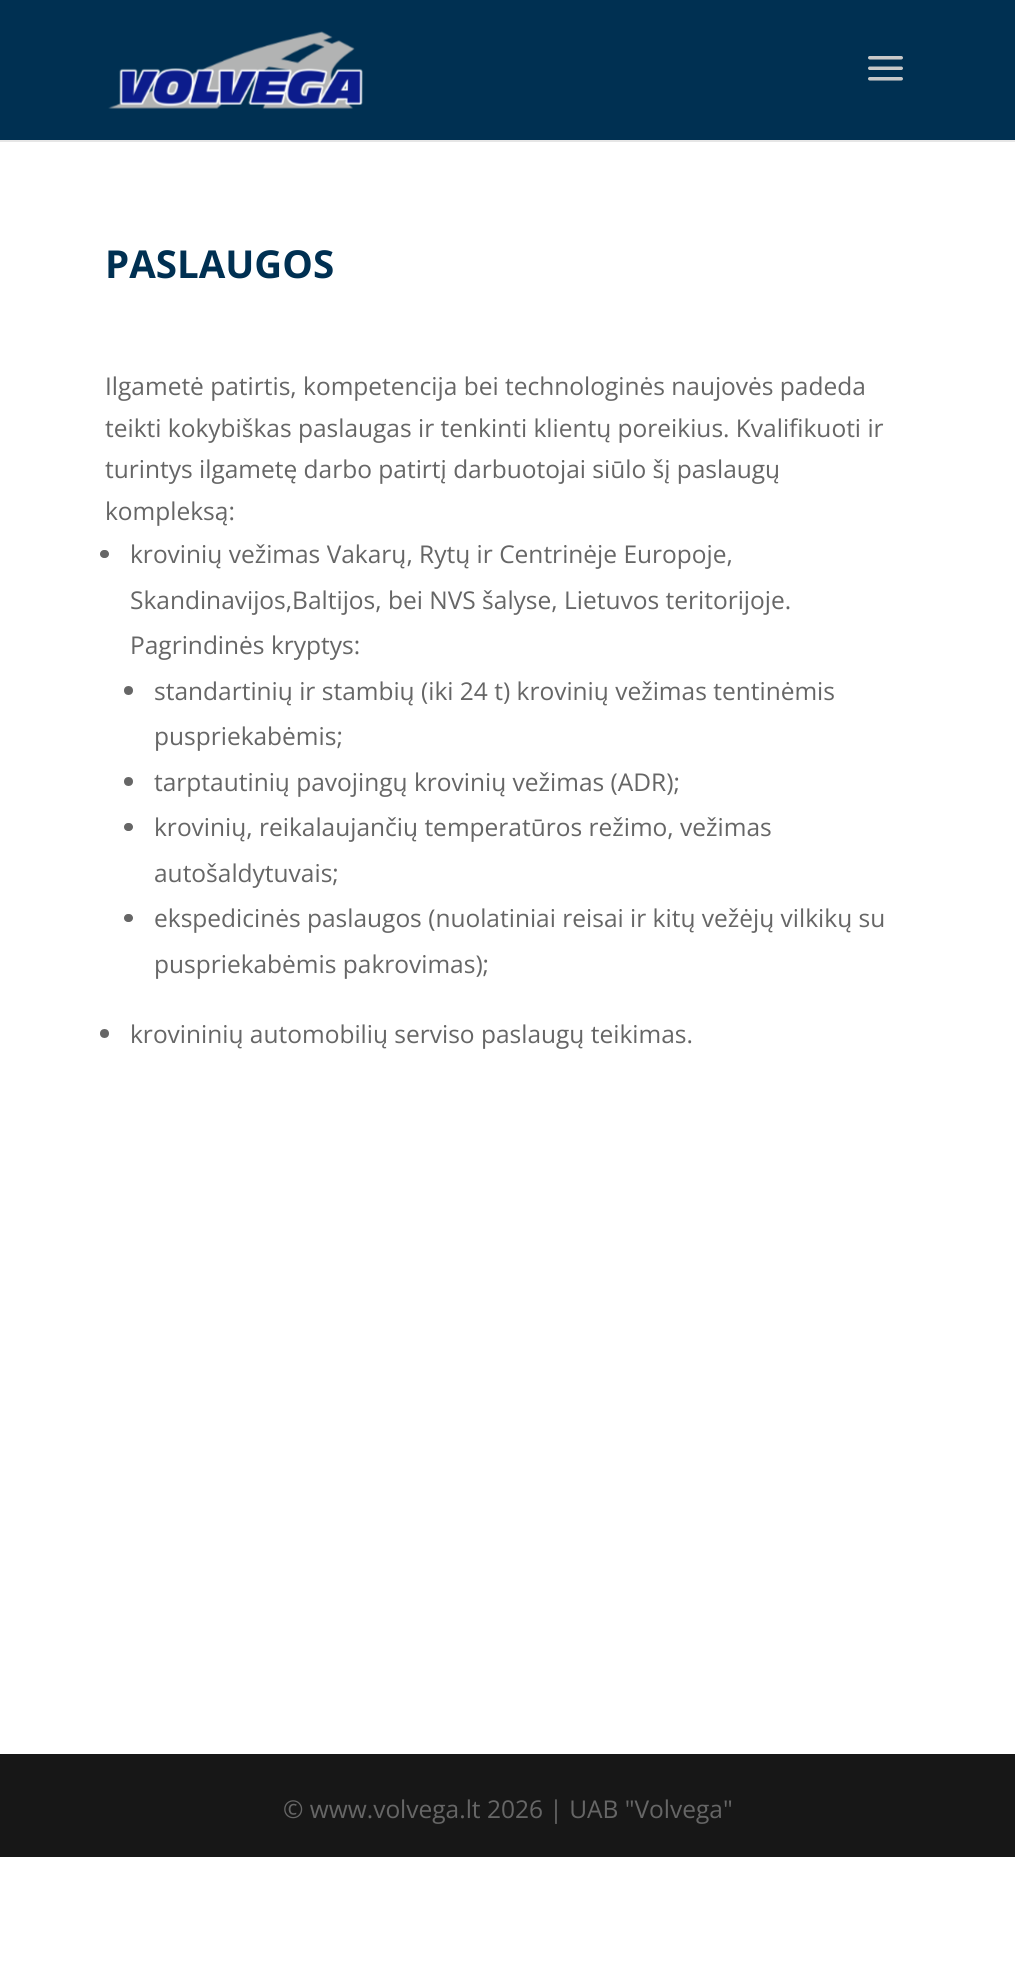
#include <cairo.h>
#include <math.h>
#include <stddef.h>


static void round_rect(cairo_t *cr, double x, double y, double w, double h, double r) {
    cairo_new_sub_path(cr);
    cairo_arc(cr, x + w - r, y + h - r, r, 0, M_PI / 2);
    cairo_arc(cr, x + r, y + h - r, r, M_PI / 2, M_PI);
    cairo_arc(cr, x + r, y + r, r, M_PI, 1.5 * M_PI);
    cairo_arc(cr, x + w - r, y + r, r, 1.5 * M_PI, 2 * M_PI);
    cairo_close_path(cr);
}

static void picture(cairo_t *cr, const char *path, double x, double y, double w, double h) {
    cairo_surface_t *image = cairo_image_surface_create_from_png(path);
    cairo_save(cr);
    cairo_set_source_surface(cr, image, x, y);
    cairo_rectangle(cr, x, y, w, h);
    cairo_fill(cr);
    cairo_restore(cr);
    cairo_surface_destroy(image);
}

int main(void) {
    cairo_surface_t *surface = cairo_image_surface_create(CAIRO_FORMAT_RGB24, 1015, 1976);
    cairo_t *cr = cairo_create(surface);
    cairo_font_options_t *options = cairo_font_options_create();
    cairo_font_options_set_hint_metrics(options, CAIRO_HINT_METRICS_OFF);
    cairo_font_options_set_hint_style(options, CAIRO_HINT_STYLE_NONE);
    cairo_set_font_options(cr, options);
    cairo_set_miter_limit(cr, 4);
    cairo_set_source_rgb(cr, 1, 1, 1);
    cairo_paint(cr);
    cairo_set_source_rgb(cr, 0.902, 0.902, 0.902);
    cairo_rectangle(cr, 0, 140, 1015, 2);
    cairo_fill(cr);
    cairo_set_source_rgb(cr, 0, 0.188, 0.322);
    cairo_rectangle(cr, 0, 0, 1015, 140);
    cairo_fill(cr);
    picture(cr, "img1.png", 108, 31, 255, 78);
    picture(cr, "img2.png", 868, 56, 35, 25);
    cairo_select_font_face(cr, "Open Sans", CAIRO_FONT_SLANT_NORMAL, CAIRO_FONT_WEIGHT_BOLD);
    cairo_set_font_size(cr, 38.5);
    cairo_move_to(cr, 105, 278);
    cairo_show_text(cr, "PASLAUGOS");
    cairo_select_font_face(cr, "Open Sans", CAIRO_FONT_SLANT_NORMAL, CAIRO_FONT_WEIGHT_NORMAL);
    cairo_set_font_size(cr, 24.5);
    cairo_set_source_rgb(cr, 0.4, 0.4, 0.4);
    cairo_move_to(cr, 105, 395);
    cairo_show_text(cr, "Ilgametė patirtis, kompetencija bei technologinės naujovės padeda");
    cairo_move_to(cr, 105, 437);
    cairo_show_text(cr, "teikti kokybiškas paslaugas ir tenkinti klientų poreikius. Kvalifikuoti ir");
    cairo_move_to(cr, 105, 478);
    cairo_show_text(cr, "turintys ilgametę darbo patirtį darbuotojai siūlo šį paslaugų");
    cairo_move_to(cr, 105, 520);
    cairo_show_text(cr, "kompleksą:");
    round_rect(cr, 100, 550, 9, 8, 4);
    cairo_fill(cr);
    cairo_move_to(cr, 130, 563);
    cairo_show_text(cr, "krovinių vežimas Vakarų, Rytų ir Centrinėje Europoje,");
    cairo_move_to(cr, 130, 609);
    cairo_show_text(cr, "Skandinavijos,Baltijos, bei NVS šalyse, Lietuvos teritorijoje.");
    cairo_move_to(cr, 130, 654);
    cairo_show_text(cr, "Pagrindinės kryptys:");
    cairo_new_path(cr);
    cairo_arc(cr, 128.5, 690.5, 4.5, 0, 2 * M_PI);
    cairo_fill(cr);
    cairo_move_to(cr, 154, 700);
    cairo_show_text(cr, "standartinių ir stambių (iki 24 t) krovinių vežimas tentinėmis");
    cairo_move_to(cr, 154, 745);
    cairo_show_text(cr, "puspriekabėmis;");
    cairo_new_path(cr);
    cairo_arc(cr, 128.5, 781.5, 4.5, 0, 2 * M_PI);
    cairo_fill(cr);
    cairo_move_to(cr, 154, 791);
    cairo_show_text(cr, "tarptautinių pavojingų krovinių vežimas (ADR);");
    round_rect(cr, 124, 823, 9, 8, 4);
    cairo_fill(cr);
    cairo_move_to(cr, 154, 836);
    cairo_show_text(cr, "krovinių, reikalaujančių temperatūros režimo, vežimas");
    cairo_move_to(cr, 154, 882);
    cairo_show_text(cr, "autošaldytuvais;");
    round_rect(cr, 124, 914, 9, 8, 4);
    cairo_fill(cr);
    cairo_move_to(cr, 154, 927);
    cairo_show_text(cr, "ekspedicinės paslaugos (nuolatiniai reisai ir kitų vežėjų vilkikų su");
    cairo_move_to(cr, 154, 973);
    cairo_show_text(cr, "puspriekabėmis pakrovimas);");
    cairo_new_path(cr);
    cairo_arc(cr, 104.5, 1033.5, 4.5, 0, 2 * M_PI);
    cairo_fill(cr);
    cairo_move_to(cr, 130, 1043);
    cairo_show_text(cr, "krovininių automobilių serviso paslaugų teikimas.");
    cairo_set_source_rgb(cr, 0.09, 0.09, 0.09);
    cairo_rectangle(cr, 0, 1754, 1015, 103);
    cairo_fill(cr);
    cairo_set_source_rgb(cr, 0.4, 0.4, 0.4);
    cairo_move_to(cr, 283, 1818);
    cairo_show_text(cr, "© www.volvega.lt 2026 | UAB \"Volvega\"");
    cairo_surface_write_to_png(surface, "page.png");
    cairo_font_options_destroy(options);
    cairo_destroy(cr);
    cairo_surface_destroy(surface);
    return 0;
}
